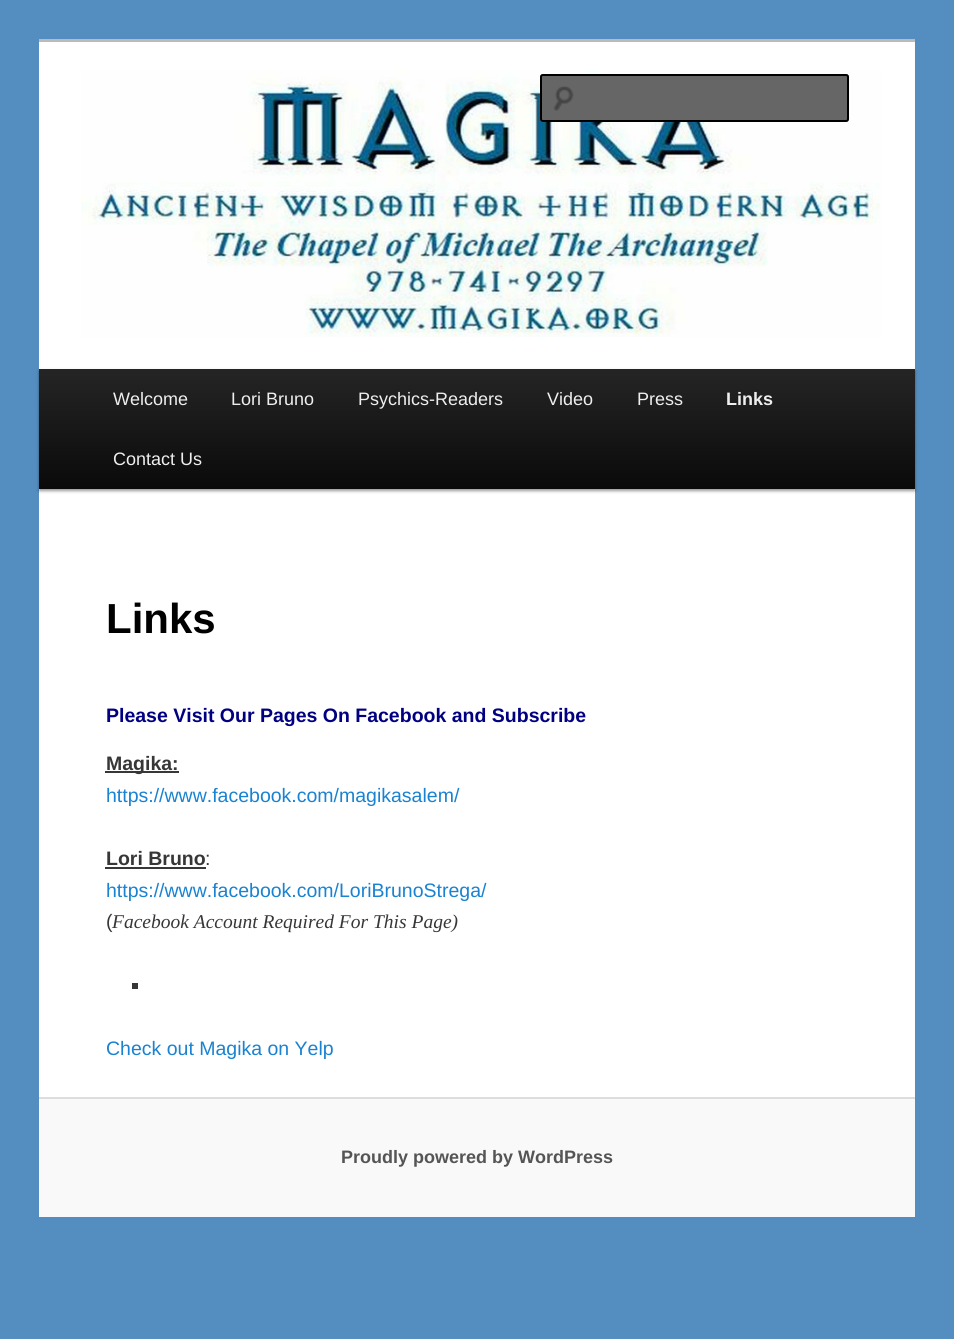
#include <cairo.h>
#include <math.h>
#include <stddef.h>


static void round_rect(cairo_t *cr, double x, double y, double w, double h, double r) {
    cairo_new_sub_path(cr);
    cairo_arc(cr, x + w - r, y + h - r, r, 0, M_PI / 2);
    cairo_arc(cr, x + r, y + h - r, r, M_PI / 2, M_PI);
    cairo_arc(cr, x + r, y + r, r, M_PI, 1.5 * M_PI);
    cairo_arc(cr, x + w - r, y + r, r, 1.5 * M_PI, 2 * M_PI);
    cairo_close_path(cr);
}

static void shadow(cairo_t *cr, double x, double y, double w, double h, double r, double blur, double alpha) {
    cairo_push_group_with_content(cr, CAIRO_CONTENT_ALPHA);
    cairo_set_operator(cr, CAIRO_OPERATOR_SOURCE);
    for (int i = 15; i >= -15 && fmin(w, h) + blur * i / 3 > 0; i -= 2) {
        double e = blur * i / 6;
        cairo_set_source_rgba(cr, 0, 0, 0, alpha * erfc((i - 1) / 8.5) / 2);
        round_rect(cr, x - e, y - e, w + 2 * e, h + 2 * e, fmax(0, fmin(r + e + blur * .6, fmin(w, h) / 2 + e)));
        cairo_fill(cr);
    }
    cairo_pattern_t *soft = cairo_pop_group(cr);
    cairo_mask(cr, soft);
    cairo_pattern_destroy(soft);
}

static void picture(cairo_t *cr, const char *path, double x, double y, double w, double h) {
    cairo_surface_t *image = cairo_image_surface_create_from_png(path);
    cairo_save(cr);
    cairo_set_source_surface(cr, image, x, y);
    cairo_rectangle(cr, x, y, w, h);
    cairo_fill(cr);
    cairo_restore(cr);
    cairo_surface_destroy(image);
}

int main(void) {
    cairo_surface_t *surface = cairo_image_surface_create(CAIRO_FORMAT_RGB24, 954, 1339);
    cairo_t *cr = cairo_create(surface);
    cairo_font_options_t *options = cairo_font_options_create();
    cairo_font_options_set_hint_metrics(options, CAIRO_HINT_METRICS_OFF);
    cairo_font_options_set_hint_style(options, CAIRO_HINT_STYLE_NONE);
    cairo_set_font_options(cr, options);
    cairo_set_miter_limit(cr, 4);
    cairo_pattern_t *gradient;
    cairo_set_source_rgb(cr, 0.329, 0.553, 0.749);
    cairo_paint(cr);
    cairo_set_source_rgb(cr, 1, 1, 1);
    cairo_rectangle(cr, 39, 42, 876, 1055);
    cairo_fill(cr);
    cairo_set_source_rgb(cr, 0.733, 0.733, 0.733);
    cairo_rectangle(cr, 39, 39, 876, 3);
    cairo_fill(cr);
    picture(cr, "img1.png", 81, 70, 800, 267);
    cairo_set_source_rgb(cr, 0.4, 0.4, 0.4);
    round_rect(cr, 540, 74, 309, 48, 3);
    cairo_fill(cr);
    picture(cr, "img2.png", 553, 86, 21, 25);
    round_rect(cr, 541, 75, 307, 46, 2);
    cairo_set_source_rgb(cr, 0, 0, 0);
    cairo_stroke(cr);
    cairo_set_source_rgb(cr, 0, 0, 0);
    shadow(cr, 39, 371, 876, 120, 0, 1.5, 0.4);
    gradient = cairo_pattern_create_linear(477, 369, 477, 489);
    cairo_pattern_add_color_stop_rgba(gradient, 0, 0.145, 0.145, 0.145, 1);
    cairo_pattern_add_color_stop_rgba(gradient, 1, 0.039, 0.039, 0.039, 1);
    cairo_set_source(cr, gradient);
    cairo_pattern_destroy(gradient);
    cairo_rectangle(cr, 39, 369, 876, 120);
    cairo_fill(cr);
    cairo_select_font_face(cr, "Liberation Sans", CAIRO_FONT_SLANT_NORMAL, CAIRO_FONT_WEIGHT_NORMAL);
    cairo_set_font_size(cr, 18);
    cairo_set_source_rgb(cr, 0.933, 0.933, 0.933);
    cairo_move_to(cr, 113, 405);
    cairo_show_text(cr, "Welcome");
    cairo_move_to(cr, 231, 405);
    cairo_show_text(cr, "Lori Bruno");
    cairo_move_to(cr, 358, 405);
    cairo_show_text(cr, "Psychics-Readers");
    cairo_move_to(cr, 547, 405);
    cairo_show_text(cr, "Video");
    cairo_move_to(cr, 637, 405);
    cairo_show_text(cr, "Press");
    cairo_select_font_face(cr, "Liberation Sans", CAIRO_FONT_SLANT_NORMAL, CAIRO_FONT_WEIGHT_BOLD);
    cairo_move_to(cr, 726, 405);
    cairo_show_text(cr, "Links");
    cairo_select_font_face(cr, "Liberation Sans", CAIRO_FONT_SLANT_NORMAL, CAIRO_FONT_WEIGHT_NORMAL);
    cairo_move_to(cr, 113, 465);
    cairo_show_text(cr, "Contact Us");
    cairo_select_font_face(cr, "Liberation Sans", CAIRO_FONT_SLANT_NORMAL, CAIRO_FONT_WEIGHT_BOLD);
    cairo_set_font_size(cr, 42);
    cairo_set_source_rgb(cr, 0, 0, 0);
    cairo_move_to(cr, 106, 633);
    cairo_show_text(cr, "Links");
    cairo_set_font_size(cr, 19.5);
    cairo_set_source_rgb(cr, 0, 0, 0.502);
    cairo_move_to(cr, 106, 722);
    cairo_show_text(cr, "Please Visit Our Pages On Facebook and Subscribe");
    cairo_set_source_rgb(cr, 0.216, 0.216, 0.216);
    cairo_rectangle(cr, 105, 771, 74, 2);
    cairo_fill(cr);
    cairo_move_to(cr, 106, 770);
    cairo_show_text(cr, "Magika:");
    cairo_select_font_face(cr, "Liberation Sans", CAIRO_FONT_SLANT_NORMAL, CAIRO_FONT_WEIGHT_NORMAL);
    cairo_set_source_rgb(cr, 0.098, 0.51, 0.82);
    cairo_move_to(cr, 106, 802);
    cairo_show_text(cr, "https://www.facebook.com/magikasalem/");
    cairo_select_font_face(cr, "Liberation Sans", CAIRO_FONT_SLANT_NORMAL, CAIRO_FONT_WEIGHT_BOLD);
    cairo_set_source_rgb(cr, 0.216, 0.216, 0.216);
    cairo_move_to(cr, 106, 865);
    cairo_show_text(cr, "Lori Bruno");
    cairo_rectangle(cr, 105, 867, 101, 2);
    cairo_fill(cr);
    cairo_select_font_face(cr, "Liberation Sans", CAIRO_FONT_SLANT_NORMAL, CAIRO_FONT_WEIGHT_NORMAL);
    cairo_move_to(cr, 205, 865);
    cairo_show_text(cr, ":");
    cairo_set_source_rgb(cr, 0.098, 0.51, 0.82);
    cairo_move_to(cr, 106, 897);
    cairo_show_text(cr, "https://www.facebook.com/LoriBrunoStrega/");
    cairo_set_source_rgb(cr, 0.216, 0.216, 0.216);
    cairo_move_to(cr, 106, 928);
    cairo_show_text(cr, "(");
    cairo_select_font_face(cr, "Liberation Serif", CAIRO_FONT_SLANT_ITALIC, CAIRO_FONT_WEIGHT_NORMAL);
    cairo_move_to(cr, 112, 928);
    cairo_show_text(cr, "Facebook Account Required For This Page)");
    cairo_rectangle(cr, 132, 983, 6, 6);
    cairo_fill(cr);
    cairo_select_font_face(cr, "Liberation Sans", CAIRO_FONT_SLANT_NORMAL, CAIRO_FONT_WEIGHT_NORMAL);
    cairo_set_source_rgb(cr, 0.098, 0.51, 0.82);
    cairo_move_to(cr, 106, 1055);
    cairo_show_text(cr, "Check out Magika on Yelp");
    cairo_set_source_rgb(cr, 0.976, 0.976, 0.976);
    cairo_rectangle(cr, 39, 1099, 876, 118);
    cairo_fill(cr);
    cairo_set_source_rgb(cr, 0.867, 0.867, 0.867);
    cairo_rectangle(cr, 39, 1097, 876, 2);
    cairo_fill(cr);
    cairo_select_font_face(cr, "Liberation Sans", CAIRO_FONT_SLANT_NORMAL, CAIRO_FONT_WEIGHT_BOLD);
    cairo_set_font_size(cr, 18);
    cairo_set_source_rgb(cr, 0.333, 0.333, 0.333);
    cairo_move_to(cr, 341, 1163);
    cairo_show_text(cr, "Proudly powered by WordPress");
    cairo_surface_write_to_png(surface, "page.png");
    cairo_font_options_destroy(options);
    cairo_destroy(cr);
    cairo_surface_destroy(surface);
    return 0;
}
